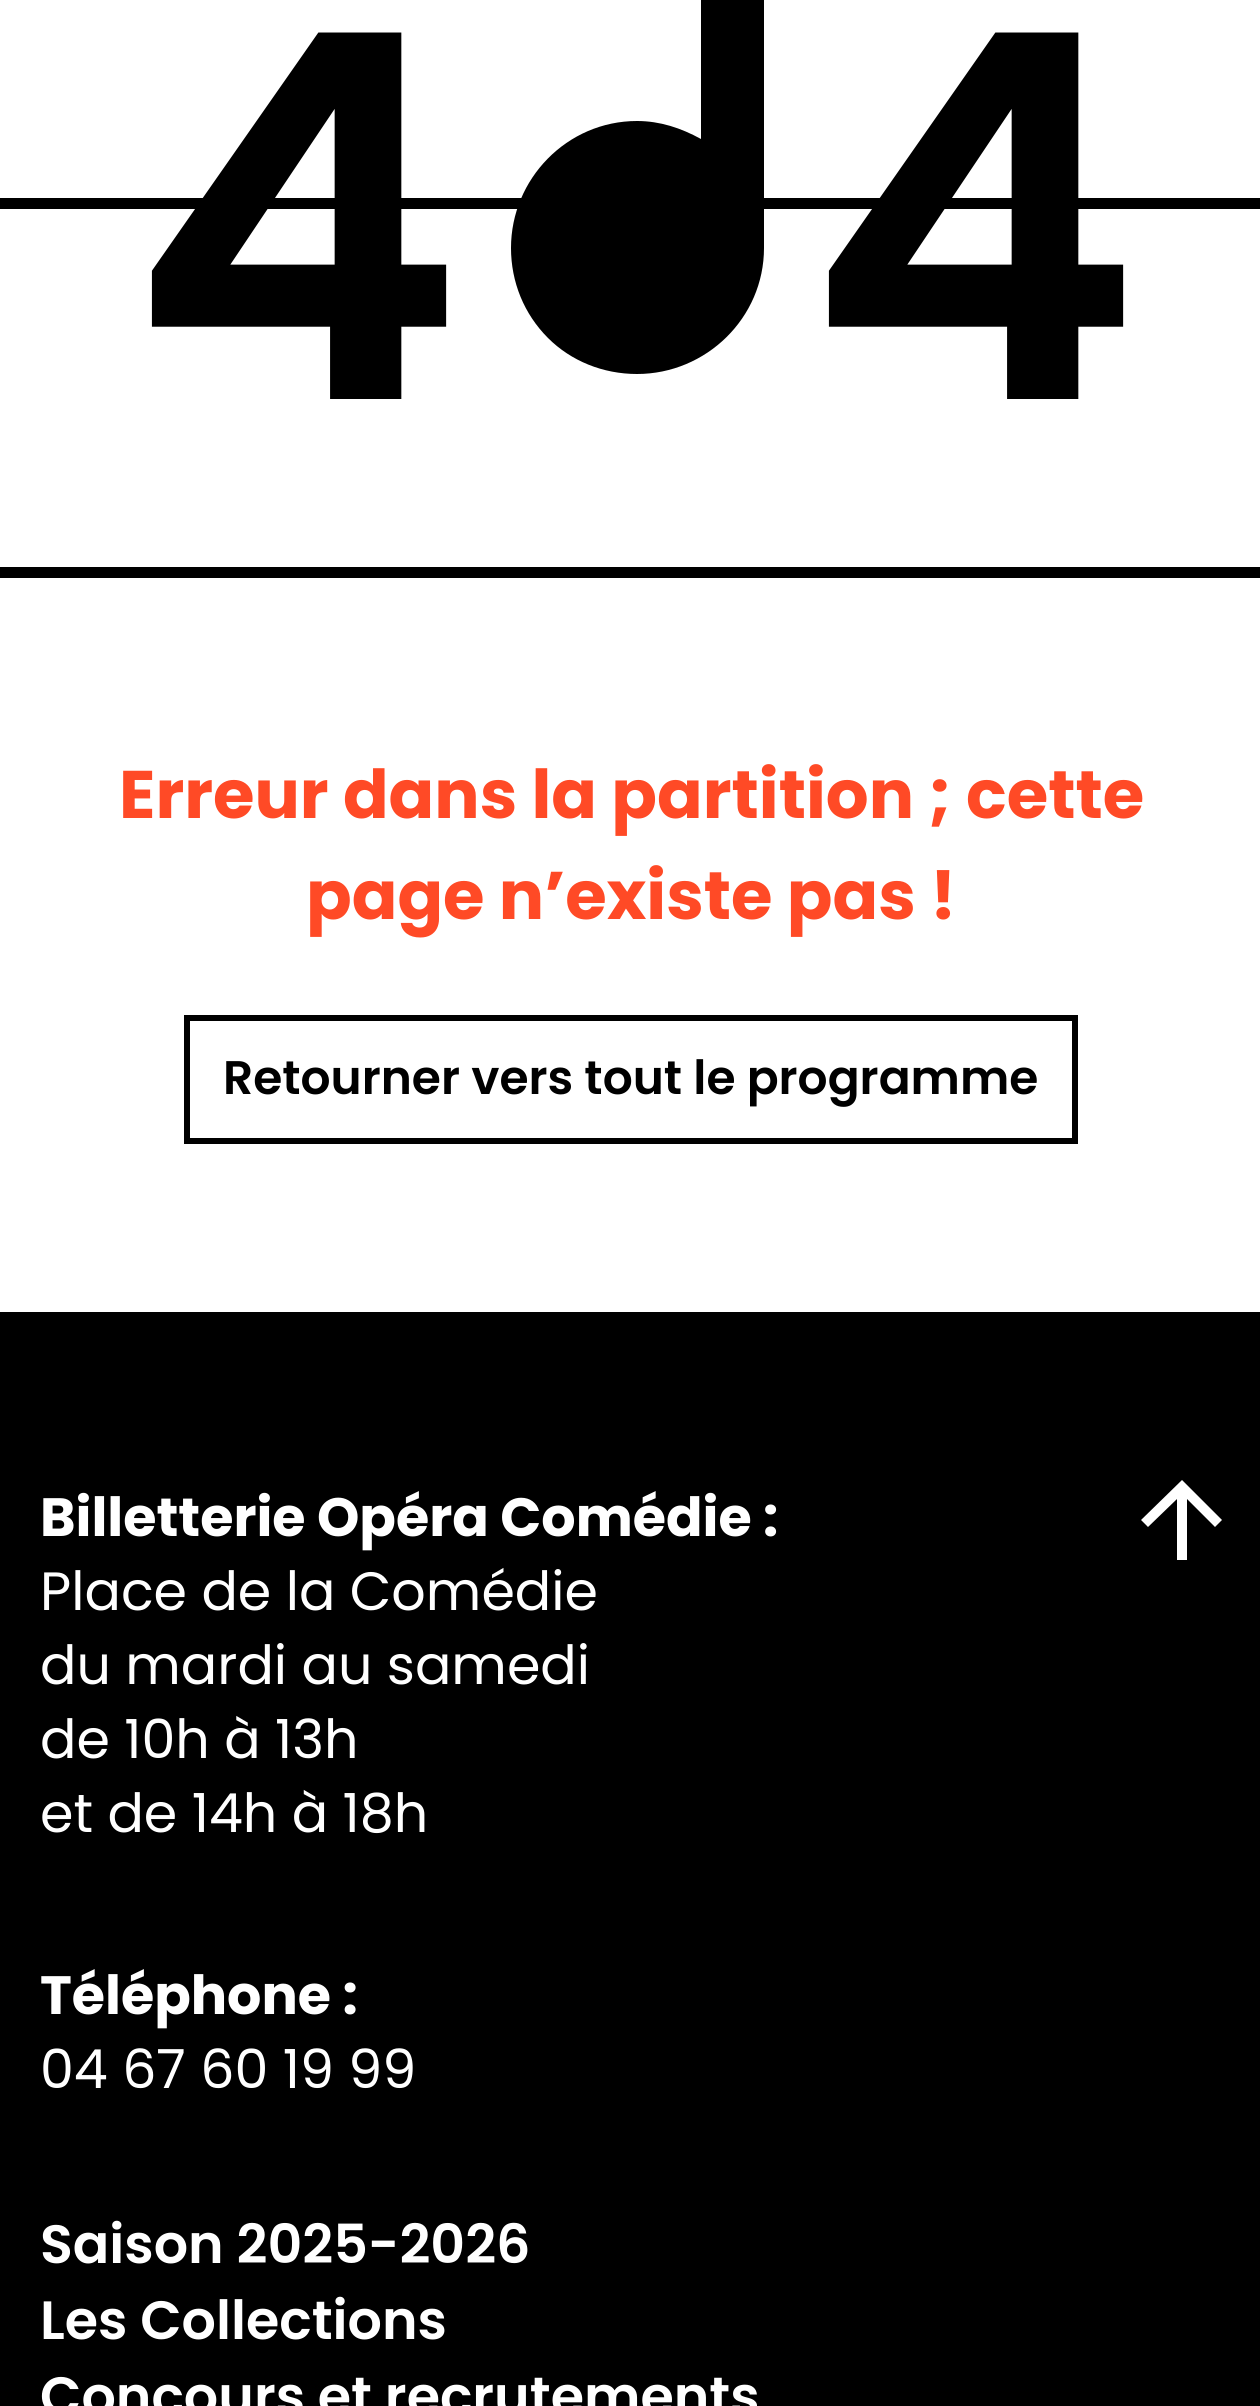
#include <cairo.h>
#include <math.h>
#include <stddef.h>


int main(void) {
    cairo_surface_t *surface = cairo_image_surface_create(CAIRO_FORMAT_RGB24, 1260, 2406);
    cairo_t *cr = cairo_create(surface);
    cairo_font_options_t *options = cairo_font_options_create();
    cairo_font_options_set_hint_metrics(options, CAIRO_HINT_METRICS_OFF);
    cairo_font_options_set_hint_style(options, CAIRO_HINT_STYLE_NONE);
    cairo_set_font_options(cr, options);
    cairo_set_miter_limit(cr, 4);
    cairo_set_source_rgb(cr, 1, 1, 1);
    cairo_paint(cr);
    cairo_set_source_rgb(cr, 0, 0, 0);
    cairo_rectangle(cr, 0, 198, 1260, 11);
    cairo_fill(cr);
    cairo_new_path(cr);
    cairo_move_to(cr, 701, -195);
    cairo_line_to(cr, 701, 139);
    cairo_curve_to(cr, 681, 128, 660, 121, 637, 121);
    cairo_curve_to(cr, 567, 121, 511, 179, 511, 248);
    cairo_curve_to(cr, 511, 282, 524, 314, 548, 338);
    cairo_curve_to(cr, 571, 361, 603, 374, 637, 374);
    cairo_curve_to(cr, 706, 374, 764, 318, 764, 248);
    cairo_line_to(cr, 764, -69);
    cairo_line_to(cr, 890, -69);
    cairo_line_to(cr, 890, -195);
    cairo_close_path(cr);
    cairo_fill(cr);
    cairo_select_font_face(cr, "Poppins SemiBold", CAIRO_FONT_SLANT_NORMAL, CAIRO_FONT_WEIGHT_NORMAL);
    cairo_set_font_size(cr, 509);
    cairo_move_to(cr, 128, 399);
    cairo_show_text(cr, "4");
    cairo_move_to(cr, 805, 399);
    cairo_show_text(cr, "4");
    cairo_rectangle(cr, 0, 567, 1260, 11);
    cairo_fill(cr);
    cairo_select_font_face(cr, "Poppins", CAIRO_FONT_SLANT_NORMAL, CAIRO_FONT_WEIGHT_BOLD);
    cairo_set_font_size(cr, 67.3);
    cairo_set_source_rgb(cr, 1, 0.29, 0.149);
    cairo_move_to(cr, 119, 818);
    cairo_show_text(cr, "Erreur dans la partition ; cette");
    cairo_move_to(cr, 306, 919);
    cairo_show_text(cr, "page n’existe pas !");
    cairo_rectangle(cr, 187, 1018, 888, 123);
    cairo_set_source_rgb(cr, 0, 0, 0);
    cairo_set_line_width(cr, 6);
    cairo_stroke(cr);
    cairo_select_font_face(cr, "Poppins SemiBold", CAIRO_FONT_SLANT_NORMAL, CAIRO_FONT_WEIGHT_NORMAL);
    cairo_set_font_size(cr, 47.1);
    cairo_move_to(cr, 223, 1094);
    cairo_show_text(cr, "Retourner vers tout le programme");
    cairo_rectangle(cr, 0, 1312, 1260, 1094);
    cairo_fill(cr);
    cairo_select_font_face(cr, "Poppins", CAIRO_FONT_SLANT_NORMAL, CAIRO_FONT_WEIGHT_BOLD);
    cairo_set_font_size(cr, 53.9);
    cairo_set_source_rgb(cr, 1, 1, 1);
    cairo_move_to(cr, 40, 1536);
    cairo_show_text(cr, "Billetterie Opéra Comédie :");
    cairo_select_font_face(cr, "Poppins", CAIRO_FONT_SLANT_NORMAL, CAIRO_FONT_WEIGHT_NORMAL);
    cairo_move_to(cr, 40, 1610);
    cairo_show_text(cr, "Place de la Comédie");
    cairo_move_to(cr, 40, 1684);
    cairo_show_text(cr, "du mardi au samedi");
    cairo_move_to(cr, 40, 1758);
    cairo_show_text(cr, "de 10h à 13h");
    cairo_move_to(cr, 40, 1832);
    cairo_show_text(cr, "et de 14h à 18h");
    cairo_select_font_face(cr, "Poppins", CAIRO_FONT_SLANT_NORMAL, CAIRO_FONT_WEIGHT_BOLD);
    cairo_move_to(cr, 40, 2014);
    cairo_show_text(cr, "Téléphone :");
    cairo_select_font_face(cr, "Poppins", CAIRO_FONT_SLANT_NORMAL, CAIRO_FONT_WEIGHT_NORMAL);
    cairo_move_to(cr, 40, 2088);
    cairo_show_text(cr, "04 67 60 19 99");
    cairo_select_font_face(cr, "Poppins SemiBold", CAIRO_FONT_SLANT_NORMAL, CAIRO_FONT_WEIGHT_NORMAL);
    cairo_move_to(cr, 40, 2263);
    cairo_show_text(cr, "Saison 2025-2026");
    cairo_move_to(cr, 40, 2339);
    cairo_show_text(cr, "Les Collections");
    cairo_move_to(cr, 40, 2415);
    cairo_show_text(cr, "Concours et recrutements");
    cairo_new_path(cr);
    cairo_move_to(cr, 1187, 1560);
    cairo_line_to(cr, 1187, 1499);
    cairo_line_to(cr, 1215, 1527);
    cairo_line_to(cr, 1222, 1520);
    cairo_line_to(cr, 1182, 1480);
    cairo_line_to(cr, 1141, 1520);
    cairo_line_to(cr, 1148, 1527);
    cairo_line_to(cr, 1177, 1499);
    cairo_line_to(cr, 1177, 1560);
    cairo_close_path(cr);
    cairo_fill(cr);
    cairo_surface_write_to_png(surface, "page.png");
    cairo_font_options_destroy(options);
    cairo_destroy(cr);
    cairo_surface_destroy(surface);
    return 0;
}
